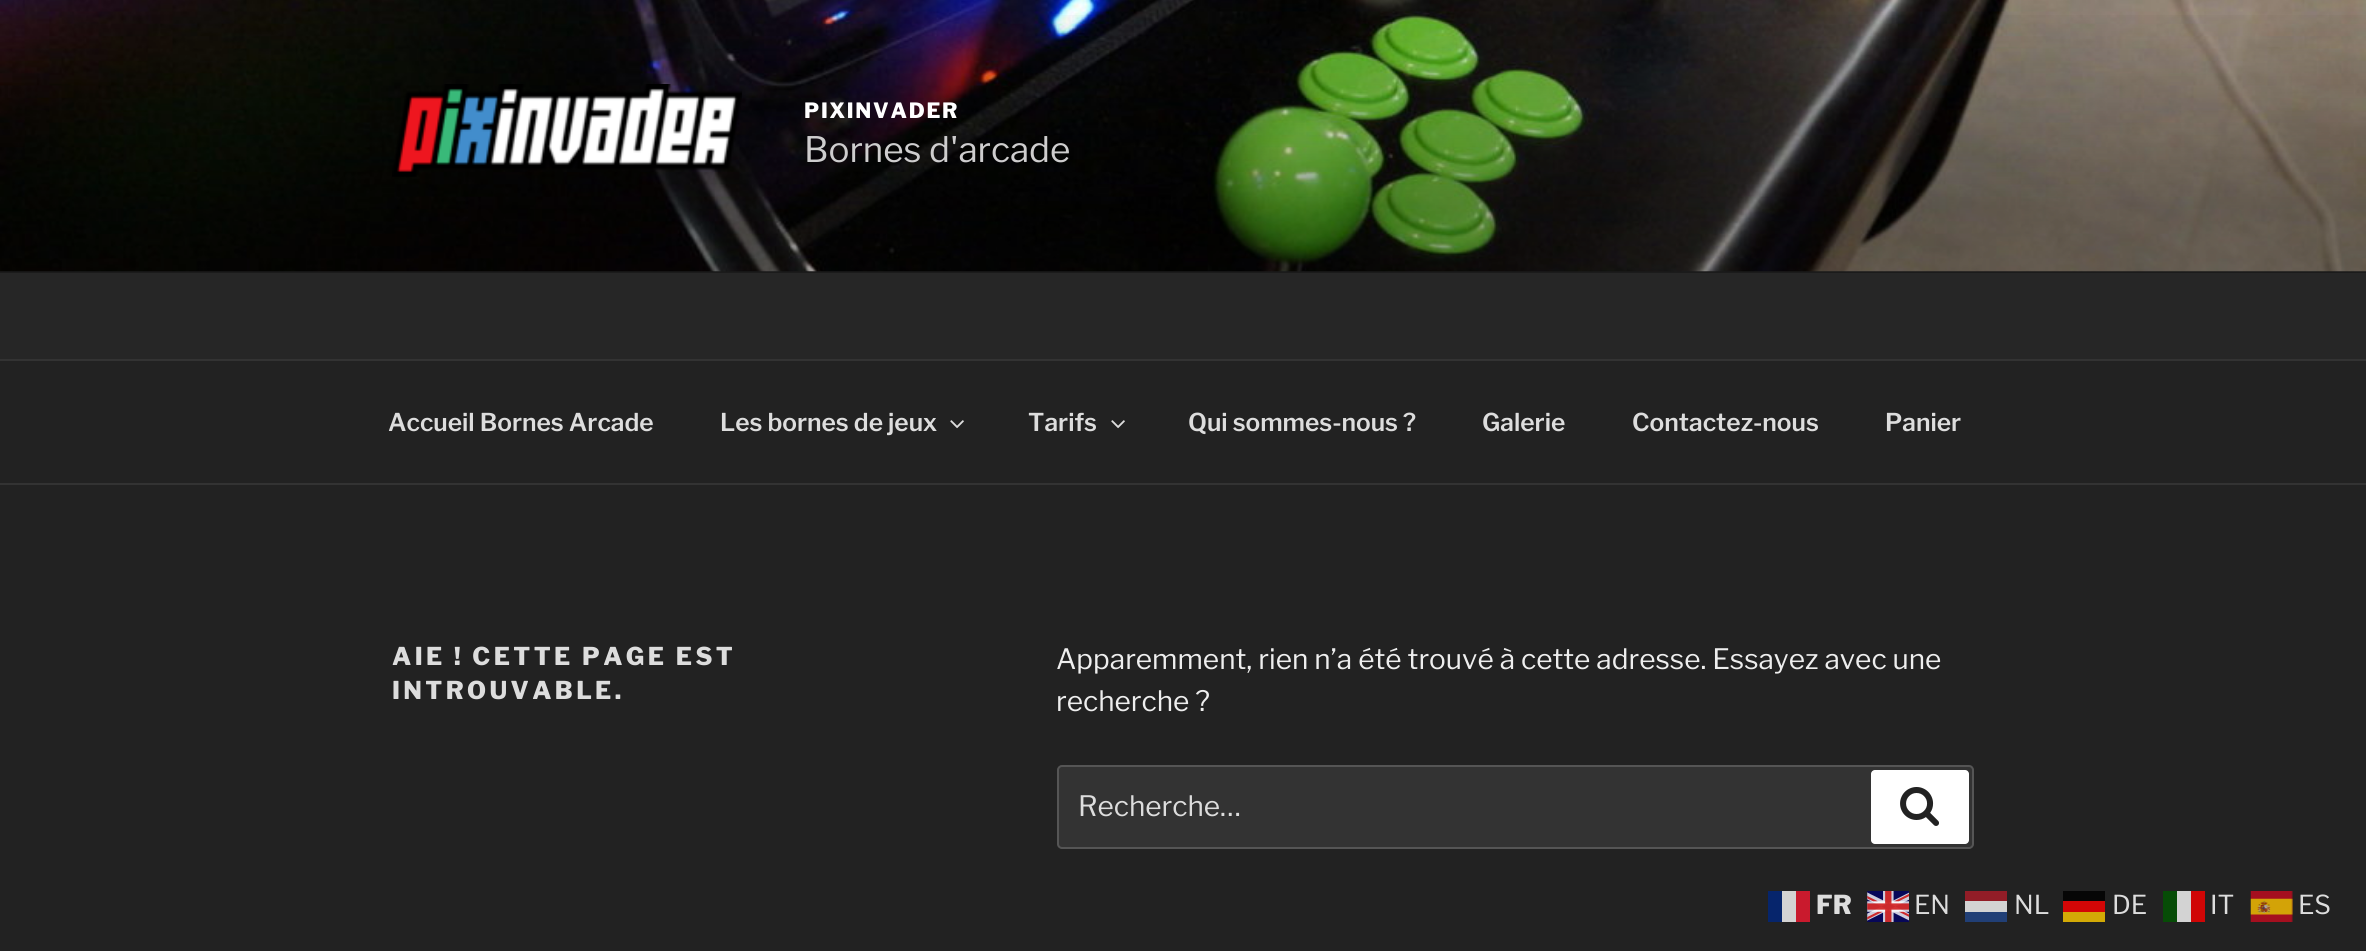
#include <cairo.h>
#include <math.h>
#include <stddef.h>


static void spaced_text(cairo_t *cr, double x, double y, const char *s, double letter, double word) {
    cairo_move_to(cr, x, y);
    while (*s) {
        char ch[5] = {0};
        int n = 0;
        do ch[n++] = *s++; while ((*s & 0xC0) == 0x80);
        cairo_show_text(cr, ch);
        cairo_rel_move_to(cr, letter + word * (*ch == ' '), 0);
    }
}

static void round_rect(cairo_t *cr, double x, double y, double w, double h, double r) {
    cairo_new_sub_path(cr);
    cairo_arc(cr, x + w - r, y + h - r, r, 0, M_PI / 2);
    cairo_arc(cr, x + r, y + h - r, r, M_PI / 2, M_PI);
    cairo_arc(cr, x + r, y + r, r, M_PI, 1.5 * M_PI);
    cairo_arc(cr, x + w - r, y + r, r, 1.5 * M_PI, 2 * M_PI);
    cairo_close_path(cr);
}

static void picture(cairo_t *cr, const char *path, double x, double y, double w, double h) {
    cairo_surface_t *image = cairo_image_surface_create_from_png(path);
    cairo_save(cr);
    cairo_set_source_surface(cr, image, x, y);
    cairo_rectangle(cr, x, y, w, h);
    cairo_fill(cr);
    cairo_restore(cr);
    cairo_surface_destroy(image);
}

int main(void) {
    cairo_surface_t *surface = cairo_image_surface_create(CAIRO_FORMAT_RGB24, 2366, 951);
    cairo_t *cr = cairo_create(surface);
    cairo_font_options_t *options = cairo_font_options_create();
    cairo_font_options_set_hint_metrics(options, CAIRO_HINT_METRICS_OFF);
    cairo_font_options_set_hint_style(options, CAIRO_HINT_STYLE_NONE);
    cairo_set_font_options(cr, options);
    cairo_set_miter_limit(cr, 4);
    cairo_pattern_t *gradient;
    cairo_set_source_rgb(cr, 0.133, 0.133, 0.133);
    cairo_paint(cr);
    cairo_set_source_rgb(cr, 0.149, 0.149, 0.149);
    cairo_rectangle(cr, 0, 271, 2366, 88);
    cairo_fill(cr);
    picture(cr, "img1.png", 0, 0, 2366, 272);
    gradient = cairo_pattern_create_linear(1183, 0, 1183, 273);
    cairo_pattern_add_color_stop_rgba(gradient, 0, 0, 0, 0, 0);
    cairo_pattern_add_color_stop_rgba(gradient, 0.75, 0, 0, 0, 0.3);
    cairo_pattern_add_color_stop_rgba(gradient, 1, 0, 0, 0, 0.3);
    cairo_set_source(cr, gradient);
    cairo_pattern_destroy(gradient);
    cairo_rectangle(cr, 0, 15, 2366, 258);
    cairo_fill(cr);
    picture(cr, "img2.png", 392, 84, 350, 93);
    cairo_select_font_face(cr, "Libre Franklin ExtraBold", CAIRO_FONT_SLANT_NORMAL, CAIRO_FONT_WEIGHT_NORMAL);
    cairo_set_font_size(cr, 21);
    cairo_set_source_rgb(cr, 1, 1, 1);
    spaced_text(cr, 804, 118, "PIXINVADER", 1.75, 0);
    cairo_select_font_face(cr, "Libre Franklin", CAIRO_FONT_SLANT_NORMAL, CAIRO_FONT_WEIGHT_NORMAL);
    cairo_set_font_size(cr, 35);
    cairo_set_source_rgb(cr, 0.808, 0.804, 0.808);
    cairo_move_to(cr, 804, 162);
    cairo_show_text(cr, "Bornes d'arcade");
    cairo_set_source_rgb(cr, 0.2, 0.2, 0.2);
    cairo_rectangle(cr, 0, 359, 2366, 2);
    cairo_fill(cr);
    cairo_rectangle(cr, 0, 483, 2366, 2);
    cairo_fill(cr);
    cairo_select_font_face(cr, "Libre Franklin SemiBold", CAIRO_FONT_SLANT_NORMAL, CAIRO_FONT_WEIGHT_NORMAL);
    cairo_set_font_size(cr, 24.5);
    cairo_set_source_rgb(cr, 0.867, 0.867, 0.867);
    cairo_move_to(cr, 388, 431);
    cairo_show_text(cr, "Accueil Bornes Arcade");
    cairo_move_to(cr, 720, 431);
    cairo_show_text(cr, "Les bornes de jeux");
    picture(cr, "img3.png", 950, 420, 14, 9);
    cairo_move_to(cr, 1028, 431);
    cairo_show_text(cr, "Tarifs");
    picture(cr, "img3.png", 1111, 420, 14, 9);
    cairo_move_to(cr, 1188, 431);
    cairo_show_text(cr, "Qui sommes-nous ?");
    cairo_move_to(cr, 1482, 431);
    cairo_show_text(cr, "Galerie");
    cairo_move_to(cr, 1632, 431);
    cairo_show_text(cr, "Contactez-nous");
    cairo_move_to(cr, 1885, 431);
    cairo_show_text(cr, "Panier");
    cairo_select_font_face(cr, "Libre Franklin ExtraBold", CAIRO_FONT_SLANT_NORMAL, CAIRO_FONT_WEIGHT_NORMAL);
    spaced_text(cr, 392, 665, "AIE ! CETTE PAGE EST", 3.4, 0);
    spaced_text(cr, 392, 699, "INTROUVABLE.", 3.4, 0);
    cairo_select_font_face(cr, "Libre Franklin", CAIRO_FONT_SLANT_NORMAL, CAIRO_FONT_WEIGHT_NORMAL);
    cairo_set_font_size(cr, 28);
    cairo_set_source_rgb(cr, 0.933, 0.933, 0.933);
    cairo_move_to(cr, 1056, 669);
    cairo_show_text(cr, "Apparemment, rien n’a été trouvé à cette adresse. Essayez avec une");
    cairo_move_to(cr, 1056, 711);
    cairo_show_text(cr, "recherche ?");
    cairo_set_source_rgb(cr, 0.2, 0.2, 0.2);
    round_rect(cr, 1058, 766, 915, 82, 4);
    cairo_fill_preserve(cr);
    cairo_set_source_rgb(cr, 0.333, 0.333, 0.333);
    cairo_stroke(cr);
    cairo_set_source_rgb(cr, 0.867, 0.867, 0.867);
    cairo_move_to(cr, 1078, 816);
    cairo_show_text(cr, "Recherche…");
    cairo_set_source_rgb(cr, 1, 1, 1);
    round_rect(cr, 1871, 770, 98, 74, 4);
    cairo_fill(cr);
    picture(cr, "img4.png", 1900, 787, 39, 39);
    cairo_select_font_face(cr, "Libre Franklin ExtraBold", CAIRO_FONT_SLANT_NORMAL, CAIRO_FONT_WEIGHT_NORMAL);
    cairo_set_font_size(cr, 26);
    cairo_set_source_rgb(cr, 0.867, 0.867, 0.867);
    cairo_move_to(cr, 1816, 914);
    cairo_show_text(cr, "FR");
    cairo_set_source_rgb(cr, 0.827, 0.827, 0.827);
    cairo_rectangle(cr, 1782, 891, 14, 31);
    cairo_fill(cr);
    cairo_set_source_rgb(cr, 0.027, 0.145, 0.424);
    cairo_rectangle(cr, 1768, 891, 14, 31);
    cairo_fill(cr);
    cairo_set_source_rgb(cr, 0.788, 0.102, 0.176);
    cairo_rectangle(cr, 1796, 891, 14, 31);
    cairo_fill(cr);
    picture(cr, "img5.png", 1867, 891, 42, 31);
    cairo_select_font_face(cr, "Libre Franklin", CAIRO_FONT_SLANT_NORMAL, CAIRO_FONT_WEIGHT_NORMAL);
    cairo_set_source_rgb(cr, 0.867, 0.867, 0.867);
    cairo_move_to(cr, 1914, 914);
    cairo_show_text(cr, "EN");
    cairo_move_to(cr, 2014, 914);
    cairo_show_text(cr, "NL");
    cairo_set_source_rgb(cr, 0.827, 0.827, 0.827);
    cairo_rectangle(cr, 1965, 901, 42, 11);
    cairo_fill(cr);
    cairo_set_source_rgb(cr, 0.129, 0.247, 0.463);
    cairo_rectangle(cr, 1965, 912, 42, 10);
    cairo_fill(cr);
    cairo_set_source_rgb(cr, 0.573, 0.114, 0.153);
    cairo_rectangle(cr, 1965, 891, 42, 10);
    cairo_fill(cr);
    cairo_set_source_rgb(cr, 0.867, 0.867, 0.867);
    cairo_move_to(cr, 2112, 914);
    cairo_show_text(cr, "DE");
    cairo_set_source_rgb(cr, 0.827, 0.667, 0.027);
    cairo_rectangle(cr, 2063, 912, 42, 10);
    cairo_fill(cr);
    cairo_set_source_rgb(cr, 0.027, 0.027, 0.027);
    cairo_rectangle(cr, 2063, 891, 42, 10);
    cairo_fill(cr);
    cairo_set_source_rgb(cr, 0.827, 0.027, 0.027);
    cairo_rectangle(cr, 2063, 901, 42, 11);
    cairo_fill(cr);
    cairo_set_source_rgb(cr, 0.867, 0.867, 0.867);
    cairo_move_to(cr, 2210, 914);
    cairo_show_text(cr, "IT");
    cairo_set_source_rgb(cr, 0.827, 0.827, 0.827);
    cairo_rectangle(cr, 2177, 891, 14, 31);
    cairo_fill(cr);
    cairo_set_source_rgb(cr, 0.027, 0.298, 0.027);
    cairo_rectangle(cr, 2163, 891, 14, 31);
    cairo_fill(cr);
    cairo_set_source_rgb(cr, 0.816, 0.027, 0.027);
    cairo_rectangle(cr, 2191, 891, 14, 31);
    cairo_fill(cr);
    picture(cr, "img6.png", 2250, 891, 43, 31);
    cairo_set_source_rgb(cr, 0.867, 0.867, 0.867);
    cairo_move_to(cr, 2298, 914);
    cairo_show_text(cr, "ES");
    cairo_surface_write_to_png(surface, "page.png");
    cairo_font_options_destroy(options);
    cairo_destroy(cr);
    cairo_surface_destroy(surface);
    return 0;
}
